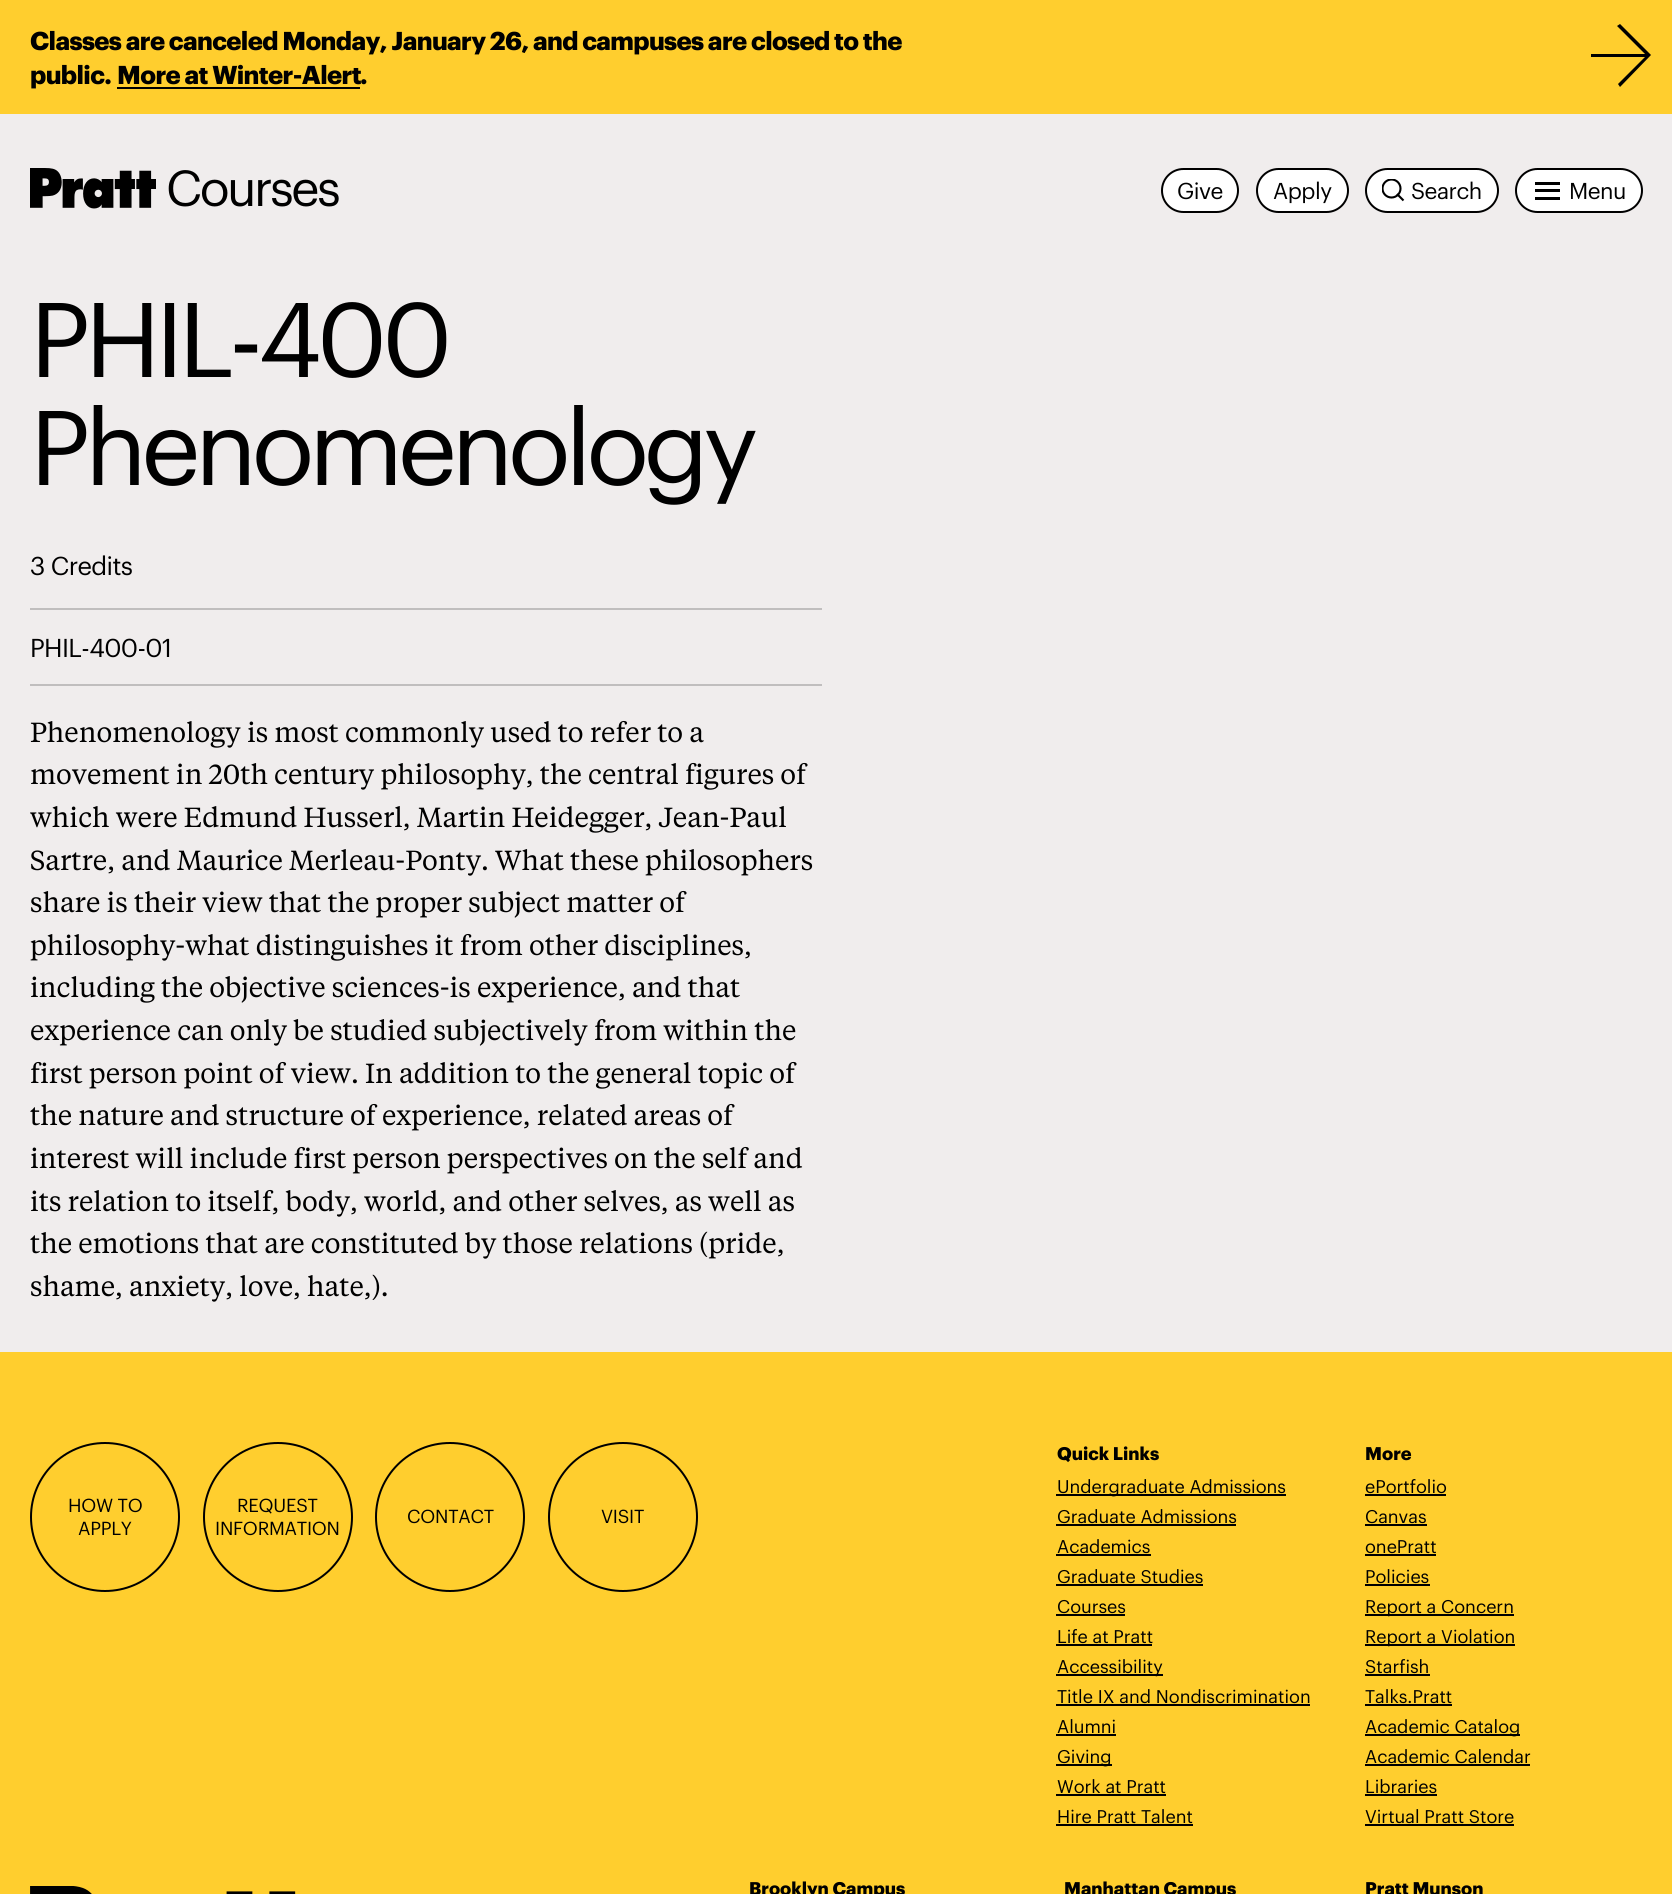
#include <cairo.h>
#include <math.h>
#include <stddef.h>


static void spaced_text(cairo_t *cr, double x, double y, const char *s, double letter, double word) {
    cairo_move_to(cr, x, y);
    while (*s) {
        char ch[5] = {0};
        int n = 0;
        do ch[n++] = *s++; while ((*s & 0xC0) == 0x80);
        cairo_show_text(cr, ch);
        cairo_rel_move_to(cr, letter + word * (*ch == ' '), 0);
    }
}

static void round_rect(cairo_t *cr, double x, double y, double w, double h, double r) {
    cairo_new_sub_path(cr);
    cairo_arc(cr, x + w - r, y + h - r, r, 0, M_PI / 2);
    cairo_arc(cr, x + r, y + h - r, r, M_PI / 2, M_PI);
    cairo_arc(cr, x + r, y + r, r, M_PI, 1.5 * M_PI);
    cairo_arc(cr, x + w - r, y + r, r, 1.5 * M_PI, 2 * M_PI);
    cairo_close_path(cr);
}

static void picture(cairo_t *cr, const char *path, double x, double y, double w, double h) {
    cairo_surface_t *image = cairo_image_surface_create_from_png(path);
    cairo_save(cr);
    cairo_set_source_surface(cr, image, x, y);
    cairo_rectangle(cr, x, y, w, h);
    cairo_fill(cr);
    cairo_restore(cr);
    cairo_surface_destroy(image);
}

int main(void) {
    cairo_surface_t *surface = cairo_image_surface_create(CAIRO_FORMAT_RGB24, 1672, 1894);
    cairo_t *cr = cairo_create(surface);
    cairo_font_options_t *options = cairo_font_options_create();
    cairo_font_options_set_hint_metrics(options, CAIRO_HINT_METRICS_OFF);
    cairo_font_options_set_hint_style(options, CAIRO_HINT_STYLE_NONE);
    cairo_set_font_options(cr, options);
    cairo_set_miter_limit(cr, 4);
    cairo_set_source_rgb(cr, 1, 0.808, 0.18);
    cairo_paint(cr);
    cairo_select_font_face(cr, "Graphik", CAIRO_FONT_SLANT_NORMAL, CAIRO_FONT_WEIGHT_BOLD);
    cairo_set_font_size(cr, 25.35);
    cairo_set_source_rgb(cr, 0, 0, 0);
    spaced_text(cr, 30, 50, "Classes are canceled Monday, January 26, and campuses are closed to the", -0.63, 0);
    spaced_text(cr, 30, 84, "public.", -0.63, 0);
    spaced_text(cr, 117, 84, "More at Winter-Alert", -0.63, 0);
    spaced_text(cr, 360, 84, ".", -0.63, 0);
    cairo_rectangle(cr, 117, 87, 243, 2);
    cairo_fill(cr);
    cairo_new_path(cr);
    cairo_move_to(cr, 1641, 45);
    cairo_line_to(cr, 1620, 24);
    cairo_line_to(cr, 1617, 26);
    cairo_line_to(cr, 1645, 54);
    cairo_line_to(cr, 1591, 54);
    cairo_line_to(cr, 1591, 57);
    cairo_line_to(cr, 1645, 57);
    cairo_line_to(cr, 1618, 84);
    cairo_line_to(cr, 1620, 87);
    cairo_line_to(cr, 1651, 55);
    cairo_close_path(cr);
    cairo_fill(cr);
    cairo_set_source_rgb(cr, 0.941, 0.929, 0.929);
    cairo_rectangle(cr, 0, 114, 1672, 1238);
    cairo_fill(cr);
    picture(cr, "img1.png", 30, 168, 126, 41);
    cairo_select_font_face(cr, "Graphik", CAIRO_FONT_SLANT_NORMAL, CAIRO_FONT_WEIGHT_NORMAL);
    cairo_set_font_size(cr, 49.5);
    cairo_set_source_rgb(cr, 0, 0, 0);
    spaced_text(cr, 166, 206, "Courses", -2.5, 0);
    cairo_set_source_rgb(cr, 1, 1, 1);
    round_rect(cr, 1162, 169, 76, 43, 21.5);
    cairo_fill_preserve(cr);
    cairo_set_source_rgb(cr, 0, 0, 0);
    cairo_stroke(cr);
    cairo_set_font_size(cr, 22.5);
    spaced_text(cr, 1177, 199, "Give", -0.5, 0);
    cairo_set_source_rgb(cr, 1, 1, 1);
    round_rect(cr, 1257, 169, 91, 43, 21.5);
    cairo_fill_preserve(cr);
    cairo_set_source_rgb(cr, 0, 0, 0);
    cairo_stroke(cr);
    spaced_text(cr, 1273, 199, "Apply", -0.5, 0);
    cairo_set_source_rgb(cr, 1, 1, 1);
    round_rect(cr, 1366, 169, 132, 43, 21.5);
    cairo_fill_preserve(cr);
    cairo_set_source_rgb(cr, 0, 0, 0);
    cairo_stroke(cr);
    cairo_save(cr);
    cairo_rectangle(cr, 1382, 179, 24, 24);
    cairo_clip(cr);
    cairo_arc(cr, 1391.5, 188.5, 9, 0, 2 * M_PI);
    cairo_set_line_width(cr, 2.1);
    cairo_stroke(cr);
    cairo_restore(cr);
    spaced_text(cr, 1411, 199, "Search", -0.5, 0);
    cairo_new_path(cr);
    cairo_move_to(cr, 1397, 194);
    cairo_line_to(cr, 1403.5, 200.5);
    cairo_set_line_width(cr, 2.1);
    cairo_stroke(cr);
    cairo_set_source_rgb(cr, 1, 1, 1);
    round_rect(cr, 1516, 169, 126, 43, 21.5);
    cairo_fill_preserve(cr);
    cairo_set_source_rgb(cr, 0, 0, 0);
    cairo_set_line_width(cr, 2);
    cairo_stroke(cr);
    cairo_rectangle(cr, 1535, 189, 25, 3);
    cairo_fill(cr);
    cairo_rectangle(cr, 1535, 182, 25, 3);
    cairo_fill(cr);
    cairo_rectangle(cr, 1535, 197, 25, 3);
    cairo_fill(cr);
    spaced_text(cr, 1569, 199, "Menu", -0.5, 0);
    cairo_set_font_size(cr, 103.5);
    spaced_text(cr, 30, 377, "PHIL-400", -5.25, 0);
    spaced_text(cr, 30, 485, "Phenomenology", -5.25, 0);
    cairo_set_font_size(cr, 25.35);
    spaced_text(cr, 30, 575, "3 Credits", -0.63, 0);
    cairo_set_source_rgb(cr, 0.753, 0.745, 0.745);
    cairo_rectangle(cr, 30, 684, 792, 2);
    cairo_fill(cr);
    cairo_rectangle(cr, 30, 608, 792, 2);
    cairo_fill(cr);
    cairo_set_source_rgb(cr, 0, 0, 0);
    spaced_text(cr, 30, 657, "PHIL-400-01", -0.63, 0);
    cairo_select_font_face(cr, "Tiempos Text", CAIRO_FONT_SLANT_NORMAL, CAIRO_FONT_WEIGHT_NORMAL);
    cairo_set_font_size(cr, 27.5);
    cairo_move_to(cr, 30, 742);
    cairo_show_text(cr, "Phenomenology is most commonly used to refer to a");
    cairo_move_to(cr, 30, 784);
    cairo_show_text(cr, "movement in 20th century philosophy, the central figures of");
    cairo_move_to(cr, 30, 827);
    cairo_show_text(cr, "which were Edmund Husserl, Martin Heidegger, Jean-Paul");
    cairo_move_to(cr, 30, 870);
    cairo_show_text(cr, "Sartre, and Maurice Merleau-Ponty. What these philosophers");
    cairo_move_to(cr, 30, 912);
    cairo_show_text(cr, "share is their view that the proper subject matter of");
    cairo_move_to(cr, 30, 955);
    cairo_show_text(cr, "philosophy-what distinguishes it from other disciplines,");
    cairo_move_to(cr, 30, 997);
    cairo_show_text(cr, "including the objective sciences-is experience, and that");
    cairo_move_to(cr, 30, 1040);
    cairo_show_text(cr, "experience can only be studied subjectively from within the");
    cairo_move_to(cr, 30, 1083);
    cairo_show_text(cr, "first person point of view. In addition to the general topic of");
    cairo_move_to(cr, 30, 1125);
    cairo_show_text(cr, "the nature and structure of experience, related areas of");
    cairo_move_to(cr, 30, 1168);
    cairo_show_text(cr, "interest will include first person perspectives on the self and");
    cairo_move_to(cr, 30, 1211);
    cairo_show_text(cr, "its relation to itself, body, world, and other selves, as well as");
    cairo_move_to(cr, 30, 1253);
    cairo_show_text(cr, "the emotions that are constituted by those relations (pride,");
    cairo_move_to(cr, 30, 1296);
    cairo_show_text(cr, "shame, anxiety, love, hate,).");
    cairo_new_path(cr);
    cairo_arc(cr, 105, 1517, 74, 0, 2 * M_PI);
    cairo_stroke(cr);
    cairo_select_font_face(cr, "Graphik", CAIRO_FONT_SLANT_NORMAL, CAIRO_FONT_WEIGHT_NORMAL);
    cairo_set_font_size(cr, 18.5);
    spaced_text(cr, 68, 1512, "HOW TO", -0.25, 0);
    spaced_text(cr, 78, 1535, "APPLY", -0.25, 0);
    cairo_new_path(cr);
    cairo_arc(cr, 278, 1517, 74, 0, 2 * M_PI);
    cairo_stroke(cr);
    spaced_text(cr, 237, 1512, "REQUEST", -0.25, 0);
    spaced_text(cr, 215, 1535, "INFORMATION", -0.25, 0);
    cairo_new_path(cr);
    cairo_arc(cr, 450, 1517, 74, 0, 2 * M_PI);
    cairo_stroke(cr);
    spaced_text(cr, 407, 1523, "CONTACT", -0.25, 0);
    cairo_new_path(cr);
    cairo_arc(cr, 623, 1517, 74, 0, 2 * M_PI);
    cairo_stroke(cr);
    spaced_text(cr, 601, 1523, "VISIT", -0.25, 0);
    cairo_select_font_face(cr, "Graphik", CAIRO_FONT_SLANT_NORMAL, CAIRO_FONT_WEIGHT_BOLD);
    cairo_set_font_size(cr, 18);
    cairo_move_to(cr, 1057, 1460);
    cairo_show_text(cr, "Quick Links");
    cairo_rectangle(cr, 1056, 1494, 230, 2);
    cairo_fill(cr);
    cairo_select_font_face(cr, "Graphik", CAIRO_FONT_SLANT_NORMAL, CAIRO_FONT_WEIGHT_NORMAL);
    cairo_move_to(cr, 1057, 1493);
    cairo_show_text(cr, "Undergraduate Admissions");
    cairo_move_to(cr, 1057, 1523);
    cairo_show_text(cr, "Graduate Admissions");
    cairo_rectangle(cr, 1056, 1524, 180, 2);
    cairo_fill(cr);
    cairo_move_to(cr, 1057, 1553);
    cairo_show_text(cr, "Academics");
    cairo_rectangle(cr, 1056, 1554, 95, 2);
    cairo_fill(cr);
    cairo_move_to(cr, 1057, 1583);
    cairo_show_text(cr, "Graduate Studies");
    cairo_rectangle(cr, 1056, 1584, 147, 2);
    cairo_fill(cr);
    cairo_move_to(cr, 1057, 1613);
    cairo_show_text(cr, "Courses");
    cairo_rectangle(cr, 1056, 1614, 69, 2);
    cairo_fill(cr);
    cairo_move_to(cr, 1057, 1643);
    cairo_show_text(cr, "Life at Pratt");
    cairo_rectangle(cr, 1056, 1644, 96, 2);
    cairo_fill(cr);
    cairo_rectangle(cr, 1056, 1674, 107, 2);
    cairo_fill(cr);
    cairo_move_to(cr, 1057, 1673);
    cairo_show_text(cr, "Accessibility");
    cairo_move_to(cr, 1057, 1703);
    cairo_show_text(cr, "Title IX and Nondiscrimination");
    cairo_rectangle(cr, 1056, 1704, 254, 2);
    cairo_fill(cr);
    cairo_move_to(cr, 1057, 1733);
    cairo_show_text(cr, "Alumni");
    cairo_rectangle(cr, 1056, 1734, 60, 2);
    cairo_fill(cr);
    cairo_rectangle(cr, 1056, 1764, 56, 2);
    cairo_fill(cr);
    cairo_move_to(cr, 1057, 1763);
    cairo_show_text(cr, "Giving");
    cairo_move_to(cr, 1057, 1793);
    cairo_show_text(cr, "Work at Pratt");
    cairo_rectangle(cr, 1056, 1794, 110, 2);
    cairo_fill(cr);
    cairo_move_to(cr, 1057, 1823);
    cairo_show_text(cr, "Hire Pratt Talent");
    cairo_rectangle(cr, 1056, 1824, 137, 2);
    cairo_fill(cr);
    cairo_select_font_face(cr, "Graphik", CAIRO_FONT_SLANT_NORMAL, CAIRO_FONT_WEIGHT_BOLD);
    cairo_move_to(cr, 1365, 1460);
    cairo_show_text(cr, "More");
    cairo_select_font_face(cr, "Graphik", CAIRO_FONT_SLANT_NORMAL, CAIRO_FONT_WEIGHT_NORMAL);
    cairo_move_to(cr, 1365, 1493);
    cairo_show_text(cr, "ePortfolio");
    cairo_rectangle(cr, 1365, 1494, 81, 2);
    cairo_fill(cr);
    cairo_move_to(cr, 1365, 1523);
    cairo_show_text(cr, "Canvas");
    cairo_rectangle(cr, 1365, 1524, 62, 2);
    cairo_fill(cr);
    cairo_move_to(cr, 1365, 1553);
    cairo_show_text(cr, "onePratt");
    cairo_rectangle(cr, 1365, 1554, 71, 2);
    cairo_fill(cr);
    cairo_move_to(cr, 1365, 1583);
    cairo_show_text(cr, "Policies");
    cairo_rectangle(cr, 1365, 1584, 65, 2);
    cairo_fill(cr);
    cairo_rectangle(cr, 1365, 1614, 149, 2);
    cairo_fill(cr);
    cairo_move_to(cr, 1365, 1613);
    cairo_show_text(cr, "Report a Concern");
    cairo_rectangle(cr, 1365, 1644, 150, 2);
    cairo_fill(cr);
    cairo_move_to(cr, 1365, 1643);
    cairo_show_text(cr, "Report a Violation");
    cairo_move_to(cr, 1365, 1673);
    cairo_show_text(cr, "Starfish");
    cairo_rectangle(cr, 1365, 1674, 65, 2);
    cairo_fill(cr);
    cairo_move_to(cr, 1365, 1703);
    cairo_show_text(cr, "Talks.Pratt");
    cairo_rectangle(cr, 1365, 1704, 87, 2);
    cairo_fill(cr);
    cairo_rectangle(cr, 1365, 1734, 155, 2);
    cairo_fill(cr);
    cairo_move_to(cr, 1365, 1733);
    cairo_show_text(cr, "Academic Catalog");
    cairo_move_to(cr, 1365, 1763);
    cairo_show_text(cr, "Academic Calendar");
    cairo_rectangle(cr, 1365, 1764, 165, 2);
    cairo_fill(cr);
    cairo_move_to(cr, 1365, 1793);
    cairo_show_text(cr, "Libraries");
    cairo_rectangle(cr, 1365, 1794, 72, 2);
    cairo_fill(cr);
    cairo_move_to(cr, 1365, 1823);
    cairo_show_text(cr, "Virtual Pratt Store");
    cairo_rectangle(cr, 1365, 1824, 149, 2);
    cairo_fill(cr);
    picture(cr, "img2.png", 30, 1886, 266, 8);
    cairo_select_font_face(cr, "Graphik", CAIRO_FONT_SLANT_NORMAL, CAIRO_FONT_WEIGHT_BOLD);
    cairo_move_to(cr, 749, 1895);
    cairo_show_text(cr, "Brooklyn Campus");
    cairo_move_to(cr, 1064, 1895);
    cairo_show_text(cr, "Manhattan Campus");
    cairo_move_to(cr, 1365, 1895);
    cairo_show_text(cr, "Pratt Munson");
    cairo_surface_write_to_png(surface, "page.png");
    cairo_font_options_destroy(options);
    cairo_destroy(cr);
    cairo_surface_destroy(surface);
    return 0;
}
